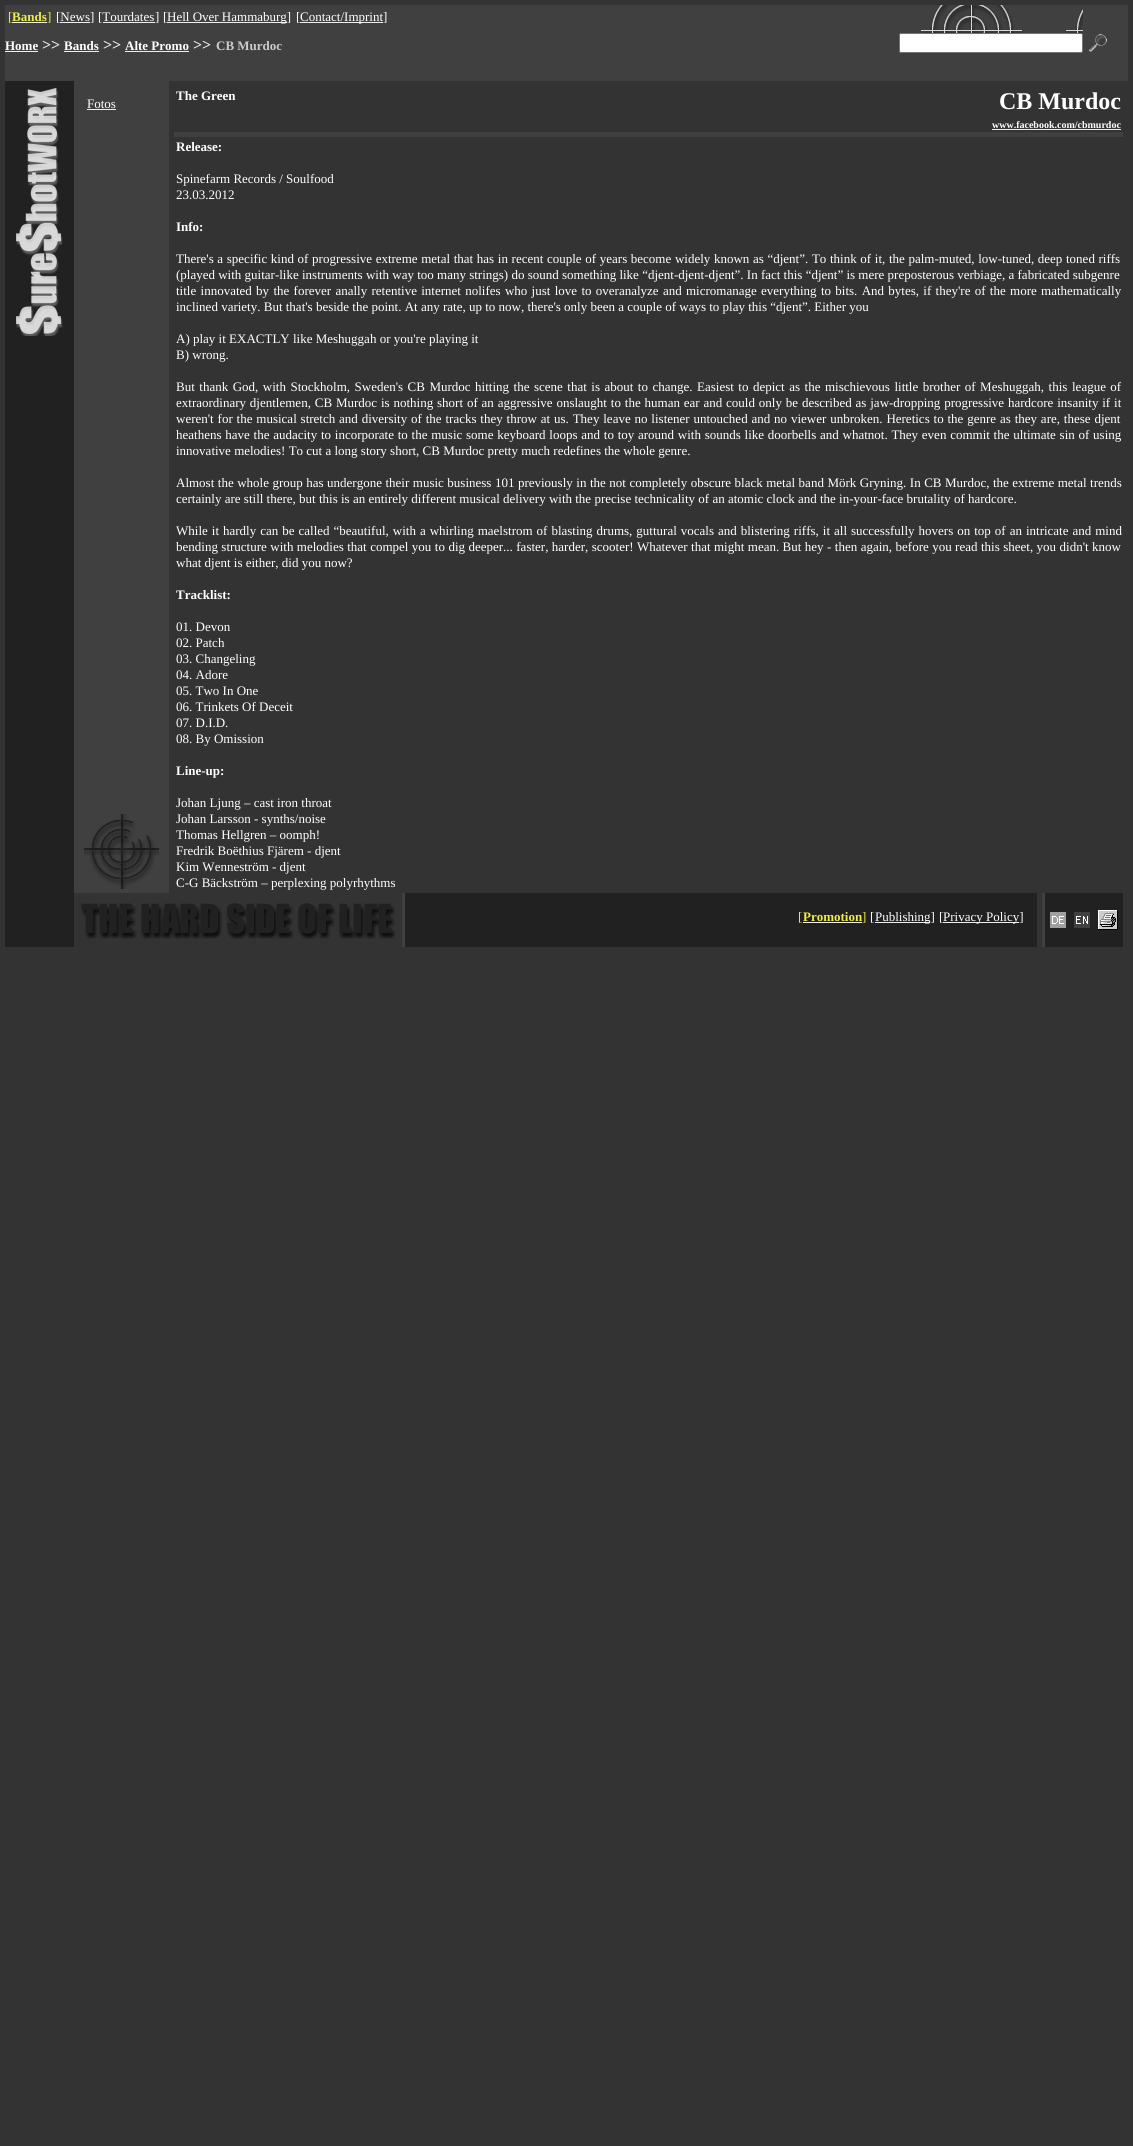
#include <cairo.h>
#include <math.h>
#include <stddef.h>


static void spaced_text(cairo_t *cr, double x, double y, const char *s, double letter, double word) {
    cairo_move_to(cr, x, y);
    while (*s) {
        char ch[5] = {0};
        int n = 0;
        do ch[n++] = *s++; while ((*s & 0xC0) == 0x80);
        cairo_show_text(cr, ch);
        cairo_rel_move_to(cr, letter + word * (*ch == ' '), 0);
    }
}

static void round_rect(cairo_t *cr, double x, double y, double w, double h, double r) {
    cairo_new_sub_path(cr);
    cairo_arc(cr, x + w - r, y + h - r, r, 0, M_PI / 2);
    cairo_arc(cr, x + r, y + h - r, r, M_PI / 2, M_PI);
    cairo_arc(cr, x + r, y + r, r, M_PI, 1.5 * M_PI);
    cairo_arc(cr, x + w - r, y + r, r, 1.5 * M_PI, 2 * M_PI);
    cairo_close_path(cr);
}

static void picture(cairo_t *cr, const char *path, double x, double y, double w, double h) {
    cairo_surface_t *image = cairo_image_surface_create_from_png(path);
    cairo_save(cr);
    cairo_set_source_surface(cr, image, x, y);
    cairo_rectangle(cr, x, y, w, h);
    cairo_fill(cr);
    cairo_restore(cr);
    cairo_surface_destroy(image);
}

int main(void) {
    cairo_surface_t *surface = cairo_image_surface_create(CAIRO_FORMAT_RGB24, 1133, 2146);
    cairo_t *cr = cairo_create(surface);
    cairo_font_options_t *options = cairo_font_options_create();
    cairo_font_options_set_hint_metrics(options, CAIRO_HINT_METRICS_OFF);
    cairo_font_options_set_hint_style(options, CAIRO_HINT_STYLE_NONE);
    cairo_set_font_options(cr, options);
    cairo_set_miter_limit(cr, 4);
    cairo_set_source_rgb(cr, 0.2, 0.2, 0.2);
    cairo_paint(cr);
    cairo_set_source_rgb(cr, 0.251, 0.251, 0.251);
    cairo_rectangle(cr, 5, 5, 1123, 76);
    cairo_fill(cr);
    cairo_select_font_face(cr, "Liberation Serif", CAIRO_FONT_SLANT_NORMAL, CAIRO_FONT_WEIGHT_NORMAL);
    cairo_set_font_size(cr, 13);
    cairo_set_source_rgb(cr, 0.933, 0.933, 0.267);
    cairo_move_to(cr, 8, 21);
    cairo_show_text(cr, "[");
    cairo_set_source_rgb(cr, 0.933, 0.933, 0.933);
    cairo_rectangle(cr, 12, 22, 35, 1);
    cairo_fill(cr);
    cairo_select_font_face(cr, "Liberation Serif", CAIRO_FONT_SLANT_NORMAL, CAIRO_FONT_WEIGHT_BOLD);
    cairo_set_source_rgb(cr, 0.933, 0.933, 0.267);
    cairo_move_to(cr, 12, 21);
    cairo_show_text(cr, "Bands");
    cairo_select_font_face(cr, "Liberation Serif", CAIRO_FONT_SLANT_NORMAL, CAIRO_FONT_WEIGHT_NORMAL);
    cairo_move_to(cr, 47, 21);
    cairo_show_text(cr, "]");
    cairo_set_source_rgb(cr, 1, 1, 1);
    cairo_move_to(cr, 56, 21);
    cairo_show_text(cr, "[News]");
    cairo_set_source_rgb(cr, 0.933, 0.933, 0.933);
    cairo_rectangle(cr, 60, 22, 30, 1);
    cairo_fill(cr);
    cairo_set_source_rgb(cr, 1, 1, 1);
    cairo_move_to(cr, 98, 21);
    cairo_show_text(cr, "[Tourdates");
    cairo_set_source_rgb(cr, 0.933, 0.933, 0.933);
    cairo_rectangle(cr, 103, 22, 52, 1);
    cairo_fill(cr);
    cairo_set_source_rgb(cr, 1, 1, 1);
    cairo_move_to(cr, 155, 21);
    cairo_show_text(cr, "]");
    cairo_move_to(cr, 163, 21);
    cairo_show_text(cr, "[");
    cairo_set_source_rgb(cr, 0.933, 0.933, 0.933);
    cairo_rectangle(cr, 167, 22, 120, 1);
    cairo_fill(cr);
    cairo_set_source_rgb(cr, 1, 1, 1);
    cairo_move_to(cr, 167, 21);
    cairo_show_text(cr, "Hell Over Hammaburg]");
    cairo_move_to(cr, 296, 21);
    cairo_show_text(cr, "[");
    cairo_set_source_rgb(cr, 0.933, 0.933, 0.933);
    cairo_rectangle(cr, 300, 22, 83, 1);
    cairo_fill(cr);
    cairo_set_source_rgb(cr, 1, 1, 1);
    cairo_move_to(cr, 300, 21);
    cairo_show_text(cr, "Contact/Imprint]");
    picture(cr, "img1.png", 899, 5, 184, 30);
    round_rect(cr, 899.5, 33.5, 183, 19, 1.5);
    cairo_fill_preserve(cr);
    cairo_set_source_rgb(cr, 0.463, 0.463, 0.463);
    cairo_set_line_width(cr, 1);
    cairo_stroke(cr);
    picture(cr, "img2.png", 1089, 34, 18, 18);
    cairo_select_font_face(cr, "Liberation Serif", CAIRO_FONT_SLANT_NORMAL, CAIRO_FONT_WEIGHT_BOLD);
    cairo_set_source_rgb(cr, 1, 1, 1);
    cairo_move_to(cr, 5, 50);
    cairo_show_text(cr, "Home");
    cairo_set_source_rgb(cr, 0.933, 0.933, 0.933);
    cairo_rectangle(cr, 5, 51, 33, 1);
    cairo_fill(cr);
    cairo_set_font_size(cr, 16);
    cairo_move_to(cr, 42, 50);
    cairo_show_text(cr, ">>");
    cairo_set_font_size(cr, 13);
    cairo_set_source_rgb(cr, 1, 1, 1);
    cairo_move_to(cr, 64, 50);
    cairo_show_text(cr, "Bands");
    cairo_set_source_rgb(cr, 0.933, 0.933, 0.933);
    cairo_rectangle(cr, 64, 51, 35, 1);
    cairo_fill(cr);
    cairo_set_font_size(cr, 16);
    cairo_move_to(cr, 103, 50);
    cairo_show_text(cr, ">>");
    cairo_set_font_size(cr, 13);
    cairo_set_source_rgb(cr, 1, 1, 1);
    cairo_move_to(cr, 125, 50);
    cairo_show_text(cr, "Alte Promo");
    cairo_set_source_rgb(cr, 0.933, 0.933, 0.933);
    cairo_rectangle(cr, 125, 51, 64, 1);
    cairo_fill(cr);
    cairo_set_font_size(cr, 16);
    cairo_move_to(cr, 193, 50);
    cairo_show_text(cr, ">>");
    cairo_set_font_size(cr, 13);
    cairo_set_source_rgb(cr, 0.8, 0.8, 0.8);
    cairo_move_to(cr, 216, 50);
    cairo_show_text(cr, "CB Murdoc");
    cairo_set_source_rgb(cr, 0.129, 0.129, 0.129);
    cairo_rectangle(cr, 5, 81, 69, 866);
    cairo_fill(cr);
    picture(cr, "img3.png", 16, 88, 47, 248);
    cairo_set_source_rgb(cr, 0.251, 0.251, 0.251);
    cairo_rectangle(cr, 74, 81, 10, 812);
    cairo_fill(cr);
    cairo_rectangle(cr, 84, 81, 75, 812);
    cairo_fill(cr);
    cairo_select_font_face(cr, "Liberation Serif", CAIRO_FONT_SLANT_NORMAL, CAIRO_FONT_WEIGHT_NORMAL);
    cairo_set_source_rgb(cr, 1, 1, 1);
    cairo_move_to(cr, 87, 108);
    cairo_show_text(cr, "Fotos");
    cairo_set_source_rgb(cr, 0.933, 0.933, 0.933);
    cairo_rectangle(cr, 87, 109, 29, 1);
    cairo_fill(cr);
    cairo_set_source_rgb(cr, 0.251, 0.251, 0.251);
    cairo_rectangle(cr, 159, 81, 10, 812);
    cairo_fill(cr);
    cairo_select_font_face(cr, "Liberation Serif", CAIRO_FONT_SLANT_NORMAL, CAIRO_FONT_WEIGHT_BOLD);
    cairo_set_source_rgb(cr, 1, 1, 1);
    cairo_move_to(cr, 176, 100);
    cairo_show_text(cr, "The Green");
    cairo_set_font_size(cr, 24);
    cairo_move_to(cr, 999, 109);
    cairo_show_text(cr, "CB Murdoc");
    cairo_set_font_size(cr, 10);
    cairo_move_to(cr, 992, 128);
    cairo_show_text(cr, "www.facebook.com/cbmurdoc");
    cairo_set_source_rgb(cr, 0.933, 0.933, 0.933);
    cairo_rectangle(cr, 992, 129, 129, 1);
    cairo_fill(cr);
    cairo_set_source_rgb(cr, 0.251, 0.251, 0.251);
    cairo_rectangle(cr, 174, 132, 949, 5);
    cairo_fill(cr);
    cairo_set_font_size(cr, 13);
    cairo_set_source_rgb(cr, 1, 1, 1);
    cairo_move_to(cr, 176, 151);
    cairo_show_text(cr, "Release:");
    cairo_select_font_face(cr, "Liberation Serif", CAIRO_FONT_SLANT_NORMAL, CAIRO_FONT_WEIGHT_NORMAL);
    cairo_move_to(cr, 176, 183);
    cairo_show_text(cr, "Spinefarm Records / Soulfood");
    cairo_move_to(cr, 176, 199);
    cairo_show_text(cr, "23.03.2012");
    cairo_select_font_face(cr, "Liberation Serif", CAIRO_FONT_SLANT_NORMAL, CAIRO_FONT_WEIGHT_BOLD);
    cairo_move_to(cr, 176, 231);
    cairo_show_text(cr, "Info:");
    cairo_select_font_face(cr, "Liberation Serif", CAIRO_FONT_SLANT_NORMAL, CAIRO_FONT_WEIGHT_NORMAL);
    spaced_text(cr, 176, 263, "There's a specific kind of progressive extreme metal that has in recent couple of years become widely known as “djent”. To think of it, the palm-muted, low-tuned, deep toned riffs", 0, 0.4);
    cairo_move_to(cr, 176, 279);
    cairo_show_text(cr, "(played with guitar-like instruments with way too many strings) do sound something like “djent-djent-djent”. In fact this “djent” is mere preposterous verbiage, a fabricated subgenre");
    spaced_text(cr, 176, 295, "title innovated by the forever anally retentive internet nolifes who just love to overanalyze and micromanage everything to bits. And bytes, if they're of the more mathematically", 0, 1.05);
    cairo_move_to(cr, 176, 311);
    cairo_show_text(cr, "inclined variety. But that's beside the point. At any rate, up to now, there's only been a couple of ways to play this “djent”. Either you");
    cairo_move_to(cr, 176, 343);
    cairo_show_text(cr, "A) play it EXACTLY like Meshuggah or you're playing it");
    cairo_move_to(cr, 176, 359);
    cairo_show_text(cr, "B) wrong.");
    spaced_text(cr, 176, 391, "But thank God, with Stockholm, Sweden's CB Murdoc hitting the scene that is about to change. Easiest to depict as the mischievous little brother of Meshuggah, this", 0, 1.25);
    spaced_text(cr, 1072, 391, "league of", 0, 1);
    spaced_text(cr, 176, 407, "extraordinary djentlemen, CB Murdoc is nothing short of an aggressive onslaught to the human ear and could only be described as jaw-dropping progressive hardcore insanity if it", 0, 0.6);
    spaced_text(cr, 176, 423, "weren't for the musical stretch and diversity of the tracks they throw at us. They leave no listener untouched and no viewer unbroken. Heretics to the genre as they are, these djent", 0, 0.6);
    spaced_text(cr, 176, 439, "heathens have the audacity to incorporate to the music some keyboard loops and to toy around with sounds like doorbells and whatnot. They even commit the ultimate sin of using", 0, 0.5);
    cairo_move_to(cr, 176, 455);
    cairo_show_text(cr, "innovative melodies! To cut a long story short, CB Murdoc pretty much redefines the whole genre.");
    spaced_text(cr, 176, 487, "Almost the whole group has undergone their music business 101 previously in the not completely obscure black metal band Mörk Gryning. In CB Murdoc, the extreme metal trends", 0, 0.25);
    cairo_move_to(cr, 176, 503);
    cairo_show_text(cr, "certainly are still there, but this is an entirely different musical delivery with the precise technicality of an atomic clock and the in-your-face brutality of hardcore.");
    spaced_text(cr, 176, 535, "While it hardly can be called “beautiful, with a whirling maelstrom of blasting drums, guttural vocals and blistering riffs, it all successfully hovers on top of an intricate and mind", 0, 0.75);
    spaced_text(cr, 176, 551, "bending structure with melodies that compel you to dig deeper... faster, harder, scooter! Whatever that might mean. But hey - then again, before you read this sheet, you didn't know", 0, 0.2);
    cairo_move_to(cr, 176, 567);
    cairo_show_text(cr, "what djent is either, did you now?");
    cairo_select_font_face(cr, "Liberation Serif", CAIRO_FONT_SLANT_NORMAL, CAIRO_FONT_WEIGHT_BOLD);
    cairo_move_to(cr, 176, 599);
    cairo_show_text(cr, "Tracklist:");
    cairo_select_font_face(cr, "Liberation Serif", CAIRO_FONT_SLANT_NORMAL, CAIRO_FONT_WEIGHT_NORMAL);
    cairo_move_to(cr, 176, 631);
    cairo_show_text(cr, "01. Devon");
    cairo_move_to(cr, 176, 647);
    cairo_show_text(cr, "02. Patch");
    cairo_move_to(cr, 176, 663);
    cairo_show_text(cr, "03. Changeling");
    cairo_move_to(cr, 176, 679);
    cairo_show_text(cr, "04. Adore");
    cairo_move_to(cr, 176, 695);
    cairo_show_text(cr, "05. Two In One");
    cairo_move_to(cr, 176, 711);
    cairo_show_text(cr, "06. Trinkets Of Deceit");
    cairo_move_to(cr, 176, 727);
    cairo_show_text(cr, "07. D.I.D.");
    cairo_move_to(cr, 176, 743);
    cairo_show_text(cr, "08. By Omission");
    cairo_select_font_face(cr, "Liberation Serif", CAIRO_FONT_SLANT_NORMAL, CAIRO_FONT_WEIGHT_BOLD);
    cairo_move_to(cr, 176, 775);
    cairo_show_text(cr, "Line-up:");
    cairo_select_font_face(cr, "Liberation Serif", CAIRO_FONT_SLANT_NORMAL, CAIRO_FONT_WEIGHT_NORMAL);
    cairo_move_to(cr, 176, 807);
    cairo_show_text(cr, "Johan Ljung – cast iron throat");
    cairo_move_to(cr, 176, 823);
    cairo_show_text(cr, "Johan Larsson - synths/noise");
    cairo_move_to(cr, 176, 839);
    cairo_show_text(cr, "Thomas Hellgren – oomph!");
    cairo_move_to(cr, 176, 855);
    cairo_show_text(cr, "Fredrik Boëthius Fjärem - djent");
    cairo_move_to(cr, 176, 871);
    cairo_show_text(cr, "Kim Wenneström - djent");
    cairo_move_to(cr, 176, 887);
    cairo_show_text(cr, "C-G Bäckström – perplexing polyrhythms");
    picture(cr, "img4.png", 84, 814, 75, 75);
    picture(cr, "img5.png", 81, 903, 314, 36);
    cairo_set_source_rgb(cr, 0.251, 0.251, 0.251);
    cairo_rectangle(cr, 402, 893, 3, 54);
    cairo_fill(cr);
    cairo_set_source_rgb(cr, 0.129, 0.129, 0.129);
    cairo_rectangle(cr, 405, 893, 632, 54);
    cairo_fill(cr);
    cairo_set_source_rgb(cr, 0.933, 0.933, 0.267);
    cairo_move_to(cr, 798, 921);
    cairo_show_text(cr, "[");
    cairo_set_source_rgb(cr, 0.933, 0.933, 0.933);
    cairo_rectangle(cr, 803, 922, 59, 1);
    cairo_fill(cr);
    cairo_select_font_face(cr, "Liberation Serif", CAIRO_FONT_SLANT_NORMAL, CAIRO_FONT_WEIGHT_BOLD);
    cairo_set_source_rgb(cr, 0.933, 0.933, 0.267);
    cairo_move_to(cr, 803, 921);
    cairo_show_text(cr, "Promotion");
    cairo_select_font_face(cr, "Liberation Serif", CAIRO_FONT_SLANT_NORMAL, CAIRO_FONT_WEIGHT_NORMAL);
    cairo_move_to(cr, 862, 921);
    cairo_show_text(cr, "]");
    cairo_set_source_rgb(cr, 1, 1, 1);
    cairo_move_to(cr, 870, 921);
    cairo_show_text(cr, "[");
    cairo_set_source_rgb(cr, 0.933, 0.933, 0.933);
    cairo_rectangle(cr, 875, 922, 55, 1);
    cairo_fill(cr);
    cairo_set_source_rgb(cr, 1, 1, 1);
    cairo_move_to(cr, 875, 921);
    cairo_show_text(cr, "Publishing]");
    cairo_move_to(cr, 939, 921);
    cairo_show_text(cr, "[");
    cairo_set_source_rgb(cr, 0.933, 0.933, 0.933);
    cairo_rectangle(cr, 943, 922, 76, 1);
    cairo_fill(cr);
    cairo_set_source_rgb(cr, 1, 1, 1);
    cairo_move_to(cr, 943, 921);
    cairo_show_text(cr, "Privacy Policy]");
    cairo_set_source_rgb(cr, 0.251, 0.251, 0.251);
    cairo_rectangle(cr, 1042, 893, 3, 54);
    cairo_fill(cr);
    cairo_set_source_rgb(cr, 0.129, 0.129, 0.129);
    cairo_rectangle(cr, 1045, 893, 78, 54);
    cairo_fill(cr);
    picture(cr, "img6.png", 1050, 912, 16, 16);
    picture(cr, "img7.png", 1074, 912, 16, 16);
    picture(cr, "img8.png", 1098, 910, 20, 20);
    cairo_surface_write_to_png(surface, "page.png");
    cairo_font_options_destroy(options);
    cairo_destroy(cr);
    cairo_surface_destroy(surface);
    return 0;
}
